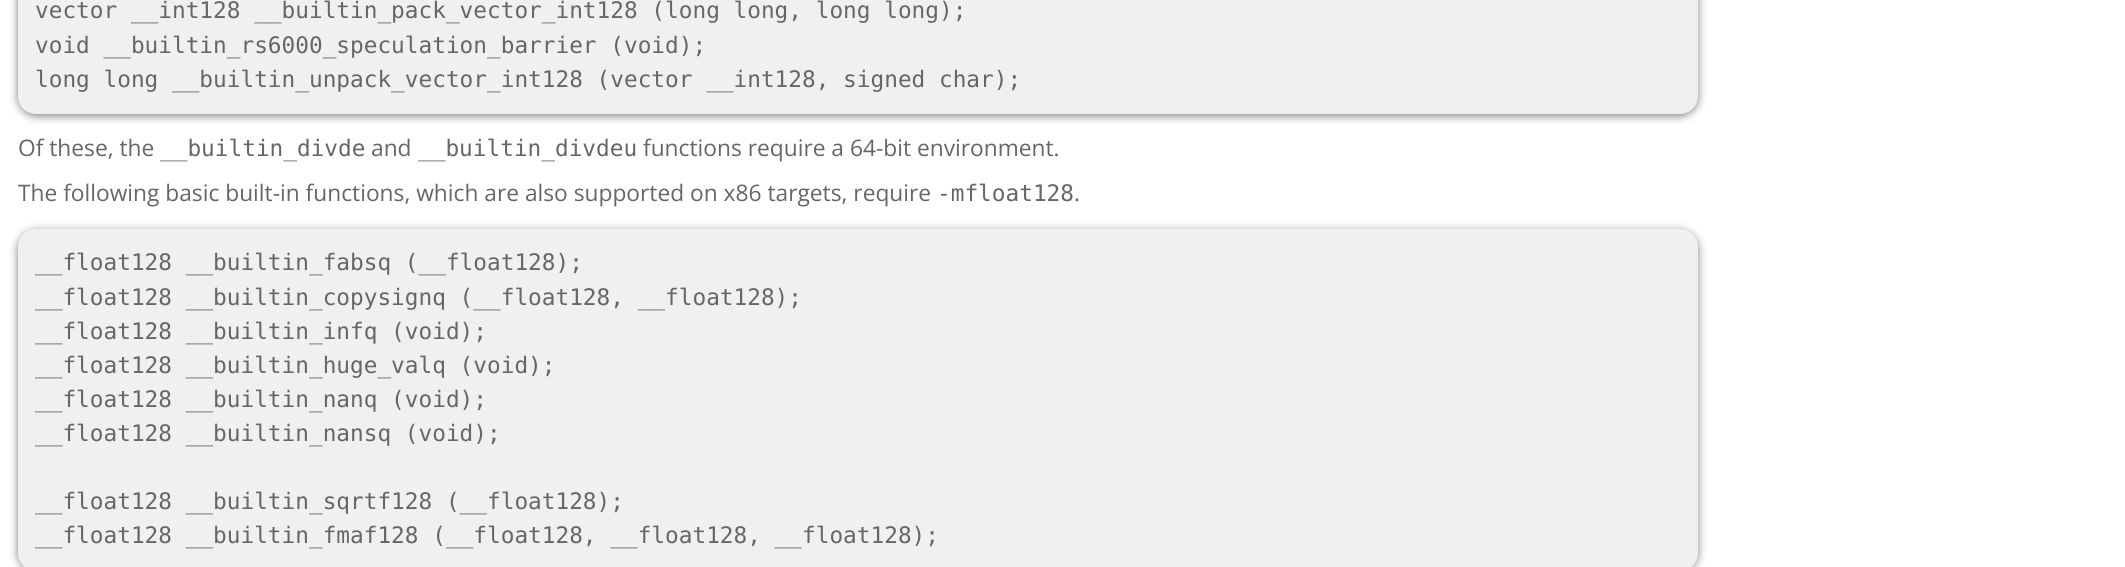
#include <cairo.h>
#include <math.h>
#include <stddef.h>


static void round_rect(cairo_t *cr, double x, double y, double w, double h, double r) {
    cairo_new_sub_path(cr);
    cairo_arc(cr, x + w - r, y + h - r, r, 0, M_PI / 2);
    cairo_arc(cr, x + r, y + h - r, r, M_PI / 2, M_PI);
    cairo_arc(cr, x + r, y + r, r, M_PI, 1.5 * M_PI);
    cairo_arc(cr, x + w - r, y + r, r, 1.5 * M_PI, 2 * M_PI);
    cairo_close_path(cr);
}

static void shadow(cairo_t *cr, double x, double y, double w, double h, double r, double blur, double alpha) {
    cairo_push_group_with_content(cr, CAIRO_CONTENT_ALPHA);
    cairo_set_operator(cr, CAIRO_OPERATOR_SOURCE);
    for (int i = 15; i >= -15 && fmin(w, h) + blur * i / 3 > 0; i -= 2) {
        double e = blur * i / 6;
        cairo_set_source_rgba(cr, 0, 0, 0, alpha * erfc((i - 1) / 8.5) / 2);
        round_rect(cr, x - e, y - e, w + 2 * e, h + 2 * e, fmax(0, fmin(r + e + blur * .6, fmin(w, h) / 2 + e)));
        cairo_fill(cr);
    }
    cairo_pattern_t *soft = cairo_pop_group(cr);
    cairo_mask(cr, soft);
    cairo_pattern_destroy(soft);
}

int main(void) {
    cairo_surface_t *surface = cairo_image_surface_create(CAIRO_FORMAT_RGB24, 2125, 567);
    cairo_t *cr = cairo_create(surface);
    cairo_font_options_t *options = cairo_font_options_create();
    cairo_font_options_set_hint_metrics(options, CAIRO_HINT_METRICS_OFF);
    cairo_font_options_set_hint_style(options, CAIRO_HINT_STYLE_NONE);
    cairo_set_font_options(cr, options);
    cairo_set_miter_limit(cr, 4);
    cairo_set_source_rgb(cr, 1, 1, 1);
    cairo_paint(cr);
    cairo_set_source_rgb(cr, 0.502, 0.502, 0.502);
    shadow(cr, 18, -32, 1680, 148, 18, 4.5, 1);
    cairo_set_source_rgb(cr, 0.941, 0.941, 0.941);
    round_rect(cr, 18, -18, 1680, 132, 18);
    cairo_fill(cr);
    cairo_select_font_face(cr, "DejaVu Sans Mono", CAIRO_FONT_SLANT_NORMAL, CAIRO_FONT_WEIGHT_NORMAL);
    cairo_set_font_size(cr, 22.75);
    cairo_set_source_rgb(cr, 0.4, 0.4, 0.4);
    cairo_move_to(cr, 35, 18);
    cairo_show_text(cr, "vector __int128 __builtin_pack_vector_int128 (long long, long long);");
    cairo_move_to(cr, 35, 53);
    cairo_show_text(cr, "void __builtin_rs6000_speculation_barrier (void);");
    cairo_move_to(cr, 35, 87);
    cairo_show_text(cr, "long long __builtin_unpack_vector_int128 (vector __int128, signed char);");
    cairo_select_font_face(cr, "Open Sans", CAIRO_FONT_SLANT_NORMAL, CAIRO_FONT_WEIGHT_NORMAL);
    cairo_move_to(cr, 18, 156);
    cairo_show_text(cr, "Of these, the");
    cairo_select_font_face(cr, "DejaVu Sans Mono", CAIRO_FONT_SLANT_NORMAL, CAIRO_FONT_WEIGHT_NORMAL);
    cairo_move_to(cr, 160, 156);
    cairo_show_text(cr, "__builtin_divde");
    cairo_select_font_face(cr, "Open Sans", CAIRO_FONT_SLANT_NORMAL, CAIRO_FONT_WEIGHT_NORMAL);
    cairo_move_to(cr, 371, 156);
    cairo_show_text(cr, "and");
    cairo_select_font_face(cr, "DejaVu Sans Mono", CAIRO_FONT_SLANT_NORMAL, CAIRO_FONT_WEIGHT_NORMAL);
    cairo_move_to(cr, 418, 156);
    cairo_show_text(cr, "__builtin_divdeu");
    cairo_select_font_face(cr, "Open Sans", CAIRO_FONT_SLANT_NORMAL, CAIRO_FONT_WEIGHT_NORMAL);
    cairo_move_to(cr, 643, 156);
    cairo_show_text(cr, "functions require a 64-bit environment.");
    cairo_move_to(cr, 18, 201);
    cairo_show_text(cr, "The following basic built-in functions, which are also supported on x86 targets, require");
    cairo_select_font_face(cr, "DejaVu Sans Mono", CAIRO_FONT_SLANT_NORMAL, CAIRO_FONT_WEIGHT_NORMAL);
    cairo_move_to(cr, 937, 201);
    cairo_show_text(cr, "-mfloat128");
    cairo_select_font_face(cr, "Open Sans", CAIRO_FONT_SLANT_NORMAL, CAIRO_FONT_WEIGHT_NORMAL);
    cairo_move_to(cr, 1074, 201);
    cairo_show_text(cr, ".");
    cairo_set_source_rgb(cr, 0.502, 0.502, 0.502);
    shadow(cr, 18, 231, 1680, 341, 18, 4.5, 1);
    cairo_set_source_rgb(cr, 0.941, 0.941, 0.941);
    round_rect(cr, 18, 229, 1680, 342, 18);
    cairo_fill(cr);
    cairo_select_font_face(cr, "DejaVu Sans Mono", CAIRO_FONT_SLANT_NORMAL, CAIRO_FONT_WEIGHT_NORMAL);
    cairo_set_source_rgb(cr, 0.4, 0.4, 0.4);
    cairo_move_to(cr, 35, 270);
    cairo_show_text(cr, "__float128 __builtin_fabsq (__float128);");
    cairo_move_to(cr, 35, 305);
    cairo_show_text(cr, "__float128 __builtin_copysignq (__float128, __float128);");
    cairo_move_to(cr, 35, 339);
    cairo_show_text(cr, "__float128 __builtin_infq (void);");
    cairo_move_to(cr, 35, 373);
    cairo_show_text(cr, "__float128 __builtin_huge_valq (void);");
    cairo_move_to(cr, 35, 407);
    cairo_show_text(cr, "__float128 __builtin_nanq (void);");
    cairo_move_to(cr, 35, 441);
    cairo_show_text(cr, "__float128 __builtin_nansq (void);");
    cairo_move_to(cr, 35, 509);
    cairo_show_text(cr, "__float128 __builtin_sqrtf128 (__float128);");
    cairo_move_to(cr, 35, 543);
    cairo_show_text(cr, "__float128 __builtin_fmaf128 (__float128, __float128, __float128);");
    cairo_surface_write_to_png(surface, "page.png");
    cairo_font_options_destroy(options);
    cairo_destroy(cr);
    cairo_surface_destroy(surface);
    return 0;
}
